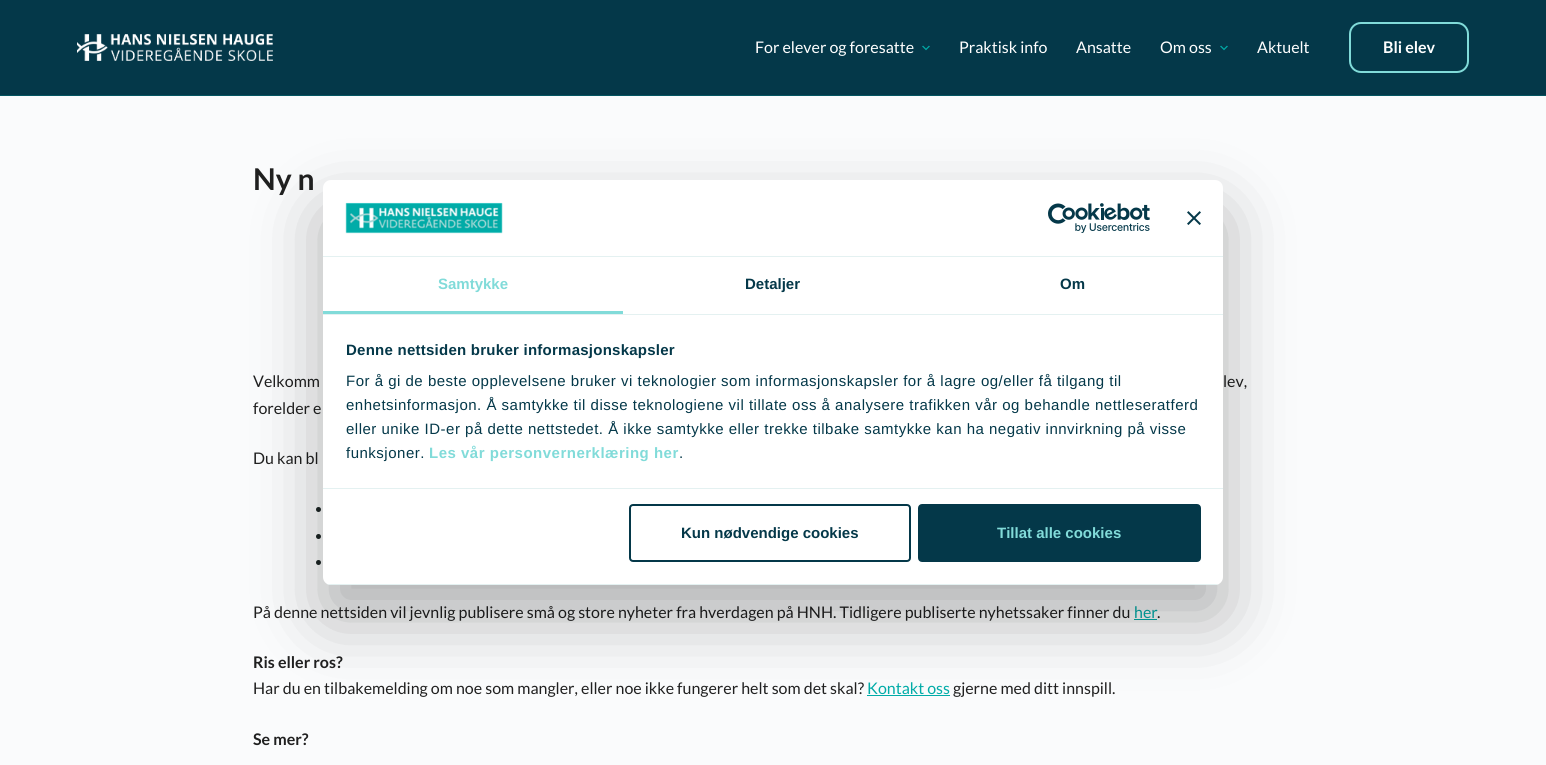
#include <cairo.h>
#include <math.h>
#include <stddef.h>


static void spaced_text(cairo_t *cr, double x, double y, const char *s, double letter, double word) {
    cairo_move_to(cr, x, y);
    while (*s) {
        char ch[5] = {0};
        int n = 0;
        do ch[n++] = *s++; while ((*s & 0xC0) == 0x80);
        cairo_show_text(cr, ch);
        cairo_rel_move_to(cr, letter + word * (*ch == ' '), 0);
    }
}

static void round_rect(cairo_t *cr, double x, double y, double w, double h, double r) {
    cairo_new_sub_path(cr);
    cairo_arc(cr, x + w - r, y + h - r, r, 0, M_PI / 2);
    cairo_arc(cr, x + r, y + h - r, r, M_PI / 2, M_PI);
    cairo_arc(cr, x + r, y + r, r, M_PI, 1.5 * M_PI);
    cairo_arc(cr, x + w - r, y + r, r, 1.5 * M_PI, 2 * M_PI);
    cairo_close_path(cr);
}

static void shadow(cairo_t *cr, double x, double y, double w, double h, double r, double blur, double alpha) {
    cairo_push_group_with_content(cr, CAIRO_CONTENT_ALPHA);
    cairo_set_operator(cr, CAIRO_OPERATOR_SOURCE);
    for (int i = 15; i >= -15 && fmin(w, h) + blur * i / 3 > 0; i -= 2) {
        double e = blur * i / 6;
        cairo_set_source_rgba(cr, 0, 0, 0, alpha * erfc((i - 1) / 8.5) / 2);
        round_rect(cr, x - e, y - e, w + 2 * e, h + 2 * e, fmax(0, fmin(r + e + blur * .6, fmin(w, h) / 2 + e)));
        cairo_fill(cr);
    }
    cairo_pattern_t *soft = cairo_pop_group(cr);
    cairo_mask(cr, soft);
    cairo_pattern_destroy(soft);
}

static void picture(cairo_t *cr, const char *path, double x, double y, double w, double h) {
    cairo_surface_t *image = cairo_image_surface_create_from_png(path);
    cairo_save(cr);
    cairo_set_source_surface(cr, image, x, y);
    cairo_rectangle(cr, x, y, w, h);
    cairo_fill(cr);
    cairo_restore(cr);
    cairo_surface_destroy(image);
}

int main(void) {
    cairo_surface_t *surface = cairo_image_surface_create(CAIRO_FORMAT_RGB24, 1546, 765);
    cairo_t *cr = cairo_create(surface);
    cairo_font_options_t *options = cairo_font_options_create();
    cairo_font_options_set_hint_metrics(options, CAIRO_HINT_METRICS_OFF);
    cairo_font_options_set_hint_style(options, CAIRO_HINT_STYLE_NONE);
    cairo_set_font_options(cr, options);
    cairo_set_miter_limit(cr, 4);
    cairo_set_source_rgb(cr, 0.98, 0.984, 0.988);
    cairo_paint(cr);
    cairo_set_source_rgb(cr, 0.016, 0.22, 0.286);
    cairo_rectangle(cr, 0, 0, 1546, 95);
    cairo_fill(cr);
    cairo_set_source_rgb(cr, 0.012, 0.333, 0.38);
    cairo_rectangle(cr, 0, 95, 1546, 1);
    cairo_fill(cr);
    picture(cr, "img1.png", 77, 34, 196, 27);
    cairo_select_font_face(cr, "Lato", CAIRO_FONT_SLANT_NORMAL, CAIRO_FONT_WEIGHT_NORMAL);
    cairo_set_font_size(cr, 16);
    cairo_set_source_rgb(cr, 1, 1, 1);
    cairo_move_to(cr, 755, 53);
    cairo_show_text(cr, "For elever og foresatte");
    picture(cr, "img2.png", 922, 45, 8, 6);
    cairo_move_to(cr, 959, 53);
    cairo_show_text(cr, "Praktisk info");
    cairo_move_to(cr, 1076, 53);
    cairo_show_text(cr, "Ansatte");
    cairo_move_to(cr, 1160, 53);
    cairo_show_text(cr, "Om oss");
    picture(cr, "img2.png", 1220, 45, 8, 6);
    cairo_move_to(cr, 1257, 53);
    cairo_show_text(cr, "Aktuelt");
    round_rect(cr, 1350, 23, 118, 49, 11);
    cairo_set_source_rgb(cr, 0.506, 0.859, 0.851);
    cairo_stroke(cr);
    cairo_select_font_face(cr, "Lato", CAIRO_FONT_SLANT_NORMAL, CAIRO_FONT_WEIGHT_BOLD);
    cairo_set_source_rgb(cr, 1, 1, 1);
    cairo_move_to(cr, 1383, 53);
    cairo_show_text(cr, "Bli elev");
    cairo_set_font_size(cr, 30);
    cairo_set_source_rgb(cr, 0.125, 0.125, 0.125);
    cairo_move_to(cr, 253, 190);
    cairo_show_text(cr, "Ny n");
    cairo_select_font_face(cr, "Lato", CAIRO_FONT_SLANT_NORMAL, CAIRO_FONT_WEIGHT_NORMAL);
    cairo_set_font_size(cr, 16);
    cairo_move_to(cr, 253, 387);
    cairo_show_text(cr, "Velkomm");
    cairo_move_to(cr, 1223, 387);
    cairo_show_text(cr, "lev,");
    cairo_move_to(cr, 253, 414);
    cairo_show_text(cr, "forelder e");
    cairo_move_to(cr, 253, 464);
    cairo_show_text(cr, "Du kan bl");
    cairo_set_source_rgb(cr, 0.11, 0.145, 0.145);
    cairo_new_path(cr);
    cairo_arc(cr, 318.5, 509.5, 2.5, 0, 2 * M_PI);
    cairo_fill(cr);
    cairo_arc(cr, 318.5, 536.5, 2.5, 0, 2 * M_PI);
    cairo_fill(cr);
    cairo_arc(cr, 318.5, 562.5, 2.5, 0, 2 * M_PI);
    cairo_fill(cr);
    cairo_set_source_rgb(cr, 0.125, 0.125, 0.125);
    cairo_move_to(cr, 253, 618);
    cairo_show_text(cr, "På denne nettsiden vil jevnlig publisere små og store nyheter fra hverdagen på HNH. Tidligere publiserte nyhetssaker finner du");
    cairo_set_source_rgb(cr, 0, 0.675, 0.659);
    cairo_move_to(cr, 1134, 618);
    cairo_show_text(cr, "her");
    cairo_rectangle(cr, 1134, 619, 23, 1);
    cairo_fill(cr);
    cairo_set_source_rgb(cr, 0.125, 0.125, 0.125);
    cairo_move_to(cr, 1157, 618);
    cairo_show_text(cr, ".");
    cairo_select_font_face(cr, "Lato", CAIRO_FONT_SLANT_NORMAL, CAIRO_FONT_WEIGHT_BOLD);
    cairo_move_to(cr, 253, 668);
    cairo_show_text(cr, "Ris eller ros?");
    cairo_select_font_face(cr, "Lato", CAIRO_FONT_SLANT_NORMAL, CAIRO_FONT_WEIGHT_NORMAL);
    cairo_move_to(cr, 253, 694);
    cairo_show_text(cr, "Har du en tilbakemelding om noe som mangler, eller noe ikke fungerer helt som det skal?");
    cairo_set_source_rgb(cr, 0, 0.675, 0.659);
    cairo_move_to(cr, 867, 694);
    cairo_show_text(cr, "Kontakt oss");
    cairo_rectangle(cr, 867, 695, 83, 1);
    cairo_fill(cr);
    cairo_set_source_rgb(cr, 0.125, 0.125, 0.125);
    cairo_move_to(cr, 953, 694);
    cairo_show_text(cr, "gjerne med ditt innspill.");
    cairo_select_font_face(cr, "Lato", CAIRO_FONT_SLANT_NORMAL, CAIRO_FONT_WEIGHT_BOLD);
    cairo_move_to(cr, 253, 745);
    cairo_show_text(cr, "Se mer?");
    cairo_set_source_rgb(cr, 0, 0, 0);
    shadow(cr, 323, 212, 900, 405, 8, 34, 0.3);
    cairo_set_source_rgb(cr, 1, 1, 1);
    round_rect(cr, 323, 180, 900, 405, 8);
    cairo_fill(cr);
    cairo_set_source_rgb(cr, 0.894, 0.945, 0.945);
    cairo_rectangle(cr, 323, 256, 900, 1);
    cairo_fill(cr);
    picture(cr, "img3.png", 345, 202, 158, 32);
    picture(cr, "img4.png", 1048, 203, 102, 30);
    picture(cr, "img5.png", 1187, 211, 14, 14);
    cairo_rectangle(cr, 323, 314, 900, 1);
    cairo_fill(cr);
    cairo_set_source_rgb(cr, 0.506, 0.859, 0.851);
    cairo_rectangle(cr, 323, 311, 300, 3);
    cairo_fill(cr);
    cairo_select_font_face(cr, "Liberation Sans", CAIRO_FONT_SLANT_NORMAL, CAIRO_FONT_WEIGHT_BOLD);
    cairo_set_font_size(cr, 15);
    cairo_move_to(cr, 438, 289);
    cairo_show_text(cr, "Samtykke");
    cairo_set_source_rgb(cr, 0.016, 0.22, 0.286);
    cairo_move_to(cr, 745, 289);
    cairo_show_text(cr, "Detaljer");
    cairo_move_to(cr, 1060, 289);
    cairo_show_text(cr, "Om");
    cairo_set_source_rgb(cr, 0.894, 0.945, 0.945);
    cairo_rectangle(cr, 323, 488, 900, 1);
    cairo_fill(cr);
    cairo_set_source_rgb(cr, 0.016, 0.22, 0.286);
    spaced_text(cr, 346, 355, "Denne nettsiden bruker informasjonskapsler", 0.25, 0);
    cairo_select_font_face(cr, "Liberation Sans", CAIRO_FONT_SLANT_NORMAL, CAIRO_FONT_WEIGHT_NORMAL);
    spaced_text(cr, 346, 386, "For å gi de beste opplevelsene bruker vi teknologier som informasjonskapsler for å lagre og/eller få tilgang til", 0.5, 0);
    spaced_text(cr, 346, 410, "enhetsinformasjon. Å samtykke til disse teknologiene vil tillate oss å analysere trafikken vår og behandle nettleseratferd", 0.5, 0);
    spaced_text(cr, 346, 434, "eller unike ID-er på dette nettstedet. Å ikke samtykke eller trekke tilbake samtykke kan ha negativ innvirkning på visse", 0.5, 0);
    spaced_text(cr, 346, 458, "funksjoner.", 0.5, 0);
    cairo_select_font_face(cr, "Liberation Sans", CAIRO_FONT_SLANT_NORMAL, CAIRO_FONT_WEIGHT_BOLD);
    cairo_set_source_rgb(cr, 0.506, 0.859, 0.851);
    spaced_text(cr, 429, 458, "Les vår personvernerklæring her", 0.5, 0);
    cairo_select_font_face(cr, "Liberation Sans", CAIRO_FONT_SLANT_NORMAL, CAIRO_FONT_WEIGHT_NORMAL);
    cairo_set_source_rgb(cr, 0.016, 0.22, 0.286);
    spaced_text(cr, 679, 458, ".", 0.5, 0);
    cairo_save(cr);
    round_rect(cr, 323, 180, 900, 405, 8);
    cairo_clip(cr);
    cairo_set_source_rgb(cr, 0.894, 0.945, 0.945);
    cairo_rectangle(cr, 323, 584, 900, 1);
    cairo_fill(cr);
    cairo_restore(cr);
    round_rect(cr, 630, 505, 280, 56, 3);
    cairo_stroke(cr);
    cairo_select_font_face(cr, "Liberation Sans", CAIRO_FONT_SLANT_NORMAL, CAIRO_FONT_WEIGHT_BOLD);
    cairo_move_to(cr, 681, 538);
    cairo_show_text(cr, "Kun nødvendige cookies");
    round_rect(cr, 919, 505, 281, 56, 3);
    cairo_fill_preserve(cr);
    cairo_stroke(cr);
    cairo_set_source_rgb(cr, 0.506, 0.859, 0.851);
    cairo_move_to(cr, 997, 538);
    cairo_show_text(cr, "Tillat alle cookies");
    cairo_surface_write_to_png(surface, "page.png");
    cairo_font_options_destroy(options);
    cairo_destroy(cr);
    cairo_surface_destroy(surface);
    return 0;
}
